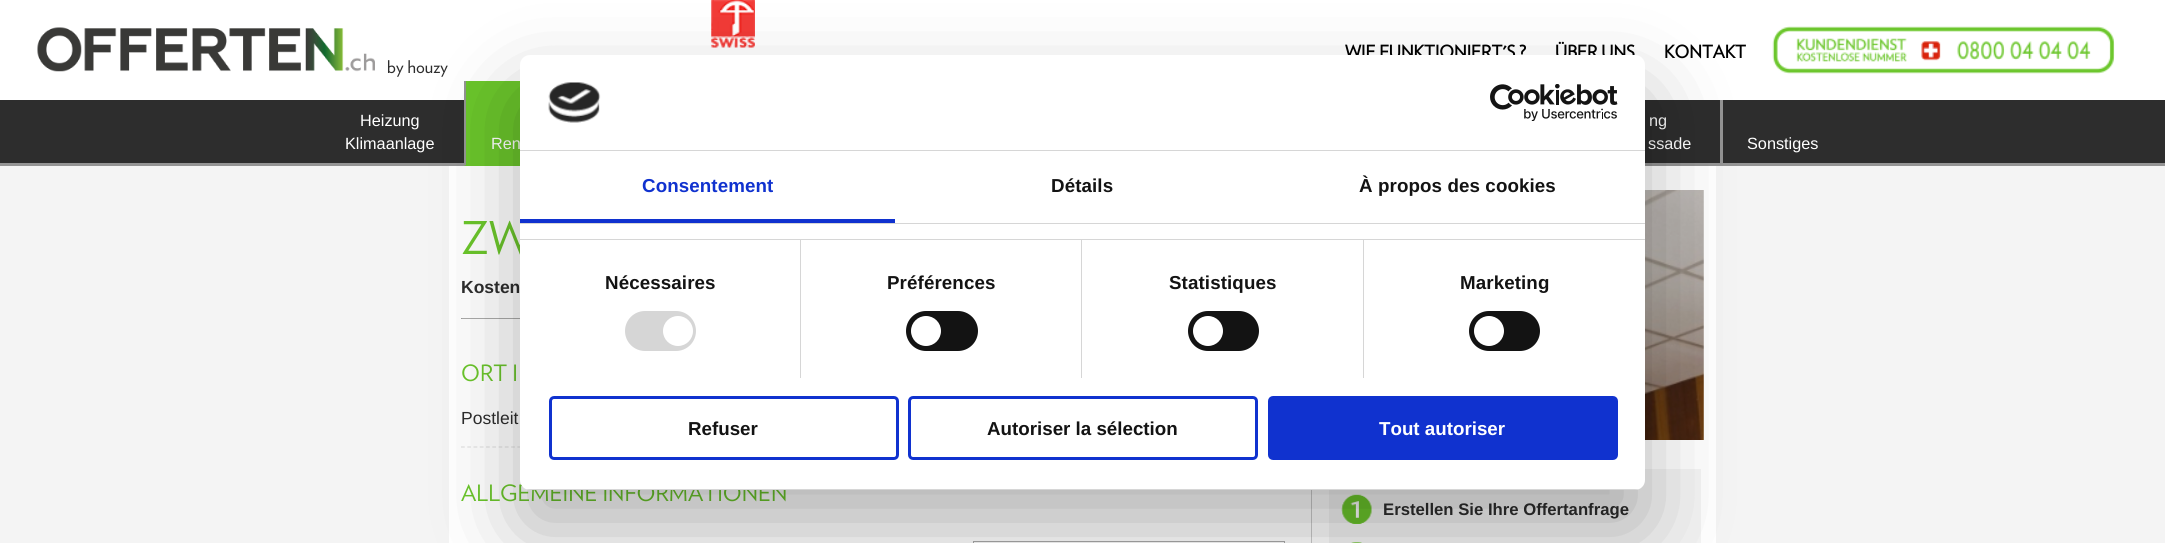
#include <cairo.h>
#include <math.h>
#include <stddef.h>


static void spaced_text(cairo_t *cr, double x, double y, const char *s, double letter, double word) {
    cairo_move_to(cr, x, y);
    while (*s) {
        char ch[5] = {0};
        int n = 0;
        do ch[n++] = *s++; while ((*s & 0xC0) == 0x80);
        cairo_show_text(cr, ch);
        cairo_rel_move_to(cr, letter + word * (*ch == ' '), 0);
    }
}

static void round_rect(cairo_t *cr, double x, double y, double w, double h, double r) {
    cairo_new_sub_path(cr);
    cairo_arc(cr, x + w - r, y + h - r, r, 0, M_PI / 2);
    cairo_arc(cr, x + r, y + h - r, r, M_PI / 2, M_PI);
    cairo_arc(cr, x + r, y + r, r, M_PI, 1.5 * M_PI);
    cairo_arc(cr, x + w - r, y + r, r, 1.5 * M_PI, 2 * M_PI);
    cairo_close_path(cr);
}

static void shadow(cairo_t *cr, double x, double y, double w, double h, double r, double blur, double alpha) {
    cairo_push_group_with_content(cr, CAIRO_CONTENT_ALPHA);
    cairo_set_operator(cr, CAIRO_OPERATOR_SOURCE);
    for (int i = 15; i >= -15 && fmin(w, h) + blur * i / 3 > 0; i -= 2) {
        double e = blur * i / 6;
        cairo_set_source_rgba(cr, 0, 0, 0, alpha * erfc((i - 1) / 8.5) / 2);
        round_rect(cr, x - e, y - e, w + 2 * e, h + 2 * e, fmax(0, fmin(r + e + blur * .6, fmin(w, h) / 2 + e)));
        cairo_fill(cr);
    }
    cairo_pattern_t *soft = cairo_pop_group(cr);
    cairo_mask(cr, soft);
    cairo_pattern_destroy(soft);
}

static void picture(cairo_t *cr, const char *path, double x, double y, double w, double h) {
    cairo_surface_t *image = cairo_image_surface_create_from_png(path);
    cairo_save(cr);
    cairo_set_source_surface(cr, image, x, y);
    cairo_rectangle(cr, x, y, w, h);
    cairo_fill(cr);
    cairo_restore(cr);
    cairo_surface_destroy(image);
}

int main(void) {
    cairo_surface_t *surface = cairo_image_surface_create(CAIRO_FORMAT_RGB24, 2165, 543);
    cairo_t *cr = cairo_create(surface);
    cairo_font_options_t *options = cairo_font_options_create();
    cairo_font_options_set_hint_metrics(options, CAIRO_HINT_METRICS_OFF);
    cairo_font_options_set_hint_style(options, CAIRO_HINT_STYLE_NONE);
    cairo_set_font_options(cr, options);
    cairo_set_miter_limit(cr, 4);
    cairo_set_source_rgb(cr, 1, 1, 1);
    cairo_paint(cr);
    picture(cr, "img1.png", 711, 0, 44, 48);
    cairo_select_font_face(cr, "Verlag", CAIRO_FONT_SLANT_NORMAL, CAIRO_FONT_WEIGHT_BOLD);
    cairo_set_font_size(cr, 17.5);
    cairo_set_source_rgb(cr, 0, 0, 0);
    cairo_move_to(cr, 1345, 58);
    cairo_show_text(cr, "WIE FUNKTIONIERT'S ?");
    cairo_move_to(cr, 1555, 58);
    cairo_show_text(cr, "ÜBER UNS");
    cairo_move_to(cr, 1664, 58);
    cairo_show_text(cr, "KONTAKT");
    picture(cr, "img2.png", 1772, 26, 343, 48);
    picture(cr, "img3.png", 37, 27, 338, 45);
    cairo_select_font_face(cr, "Verlag", CAIRO_FONT_SLANT_NORMAL, CAIRO_FONT_WEIGHT_NORMAL);
    cairo_set_source_rgb(cr, 0.176, 0.176, 0.176);
    cairo_move_to(cr, 387, 73);
    cairo_show_text(cr, "by houzy");
    cairo_rectangle(cr, 0, 100, 2165, 63);
    cairo_fill(cr);
    cairo_set_source_rgb(cr, 0.58, 0.58, 0.58);
    cairo_rectangle(cr, 0, 163, 2165, 3);
    cairo_fill(cr);
    cairo_select_font_face(cr, "Liberation Sans", CAIRO_FONT_SLANT_NORMAL, CAIRO_FONT_WEIGHT_NORMAL);
    cairo_set_font_size(cr, 16.25);
    cairo_set_source_rgb(cr, 1, 1, 1);
    cairo_move_to(cr, 360, 126);
    cairo_show_text(cr, "Heizung");
    cairo_move_to(cr, 345, 149);
    cairo_show_text(cr, "Klimaanlage");
    cairo_set_source_rgb(cr, 0.42, 0.776, 0.169);
    cairo_rectangle(cr, 464, 81, 56, 85);
    cairo_fill(cr);
    cairo_set_source_rgb(cr, 0.58, 0.58, 0.58);
    cairo_new_path(cr);
    cairo_move_to(cr, 464, 166);
    cairo_line_to(cr, 464, 81);
    cairo_line_to(cr, 466, 81);
    cairo_line_to(cr, 466, 165);
    cairo_close_path(cr);
    cairo_fill(cr);
    cairo_set_source_rgb(cr, 1, 1, 1);
    cairo_move_to(cr, 491, 149);
    cairo_show_text(cr, "Ren");
    cairo_move_to(cr, 1649, 126);
    cairo_show_text(cr, "ng");
    cairo_move_to(cr, 1648, 149);
    cairo_show_text(cr, "ssade");
    cairo_set_source_rgb(cr, 0.58, 0.58, 0.58);
    cairo_rectangle(cr, 1720, 100, 3, 64);
    cairo_fill(cr);
    cairo_set_source_rgb(cr, 1, 1, 1);
    cairo_move_to(cr, 1747, 149);
    cairo_show_text(cr, "Sonstiges");
    cairo_set_source_rgb(cr, 0.957, 0.957, 0.957);
    cairo_rectangle(cr, 0, 166, 2165, 377);
    cairo_fill(cr);
    cairo_set_source_rgb(cr, 1, 1, 1);
    cairo_rectangle(cr, 449, 166, 1267, 377);
    cairo_fill(cr);
    cairo_set_source_rgb(cr, 0.8, 0.8, 0.8);
    cairo_rectangle(cr, 1311, 490, 1, 53);
    cairo_fill(cr);
    cairo_select_font_face(cr, "Verlag", CAIRO_FONT_SLANT_NORMAL, CAIRO_FONT_WEIGHT_NORMAL);
    cairo_set_font_size(cr, 45);
    cairo_set_source_rgb(cr, 0.42, 0.776, 0.169);
    cairo_move_to(cr, 461, 254);
    cairo_show_text(cr, "ZW");
    cairo_select_font_face(cr, "Liberation Sans", CAIRO_FONT_SLANT_NORMAL, CAIRO_FONT_WEIGHT_BOLD);
    cairo_set_font_size(cr, 17.5);
    cairo_set_source_rgb(cr, 0.176, 0.176, 0.176);
    cairo_move_to(cr, 461, 293);
    cairo_show_text(cr, "Kosten");
    cairo_set_source_rgb(cr, 0.671, 0.671, 0.667);
    cairo_rectangle(cr, 461, 318, 59, 1);
    cairo_fill(cr);
    cairo_set_source_rgb(cr, 0.624, 0.624, 0.624);
    cairo_rectangle(cr, 461, 318, 1, 1);
    cairo_fill(cr);
    cairo_select_font_face(cr, "Verlag", CAIRO_FONT_SLANT_NORMAL, CAIRO_FONT_WEIGHT_NORMAL);
    cairo_set_font_size(cr, 22.5);
    cairo_set_source_rgb(cr, 0.42, 0.776, 0.169);
    cairo_move_to(cr, 461, 381);
    cairo_show_text(cr, "ORT I");
    cairo_new_path(cr);
    cairo_move_to(cr, 461, 447);
    cairo_line_to(cr, 1311, 447);
    cairo_set_source_rgb(cr, 0.89, 0.89, 0.89);
    cairo_set_line_width(cr, 1.2);
    cairo_set_dash(cr, (double[]){3.75, 2.51}, 2, 0);
    cairo_stroke(cr);
    cairo_select_font_face(cr, "Liberation Sans", CAIRO_FONT_SLANT_NORMAL, CAIRO_FONT_WEIGHT_NORMAL);
    cairo_set_font_size(cr, 17.5);
    cairo_set_source_rgb(cr, 0.176, 0.176, 0.176);
    cairo_move_to(cr, 461, 424);
    cairo_show_text(cr, "Postleit");
    cairo_select_font_face(cr, "Verlag", CAIRO_FONT_SLANT_NORMAL, CAIRO_FONT_WEIGHT_NORMAL);
    cairo_set_font_size(cr, 22.5);
    cairo_set_source_rgb(cr, 0.42, 0.776, 0.169);
    cairo_move_to(cr, 461, 501);
    cairo_show_text(cr, "ALLGEMEINE INFORMATIONEN");
    cairo_rectangle(cr, 973.5, 541.5, 311, 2);
    cairo_set_source_rgb(cr, 0.667, 0.667, 0.667);
    cairo_set_line_width(cr, 1);
    cairo_set_dash(cr, NULL, 0, 0);
    cairo_stroke(cr);
    picture(cr, "img4.png", 1645, 190, 59, 250);
    cairo_set_source_rgb(cr, 0.957, 0.957, 0.957);
    cairo_rectangle(cr, 1329, 469, 372, 74);
    cairo_fill(cr);
    picture(cr, "img5.png", 1341, 494, 31, 30);
    cairo_select_font_face(cr, "Liberation Sans", CAIRO_FONT_SLANT_NORMAL, CAIRO_FONT_WEIGHT_BOLD);
    cairo_set_font_size(cr, 16.7);
    cairo_set_source_rgb(cr, 0.176, 0.176, 0.176);
    cairo_move_to(cr, 1383, 515);
    cairo_show_text(cr, "Erstellen Sie Ihre Offertanfrage");
    picture(cr, "img6.png", 1351, 542, 11, 1);
    cairo_set_source_rgb(cr, 0, 0, 0);
    shadow(cr, 520, 95, 1125, 435, 10, 42.5, 0.3);
    cairo_set_source_rgb(cr, 1, 1, 1);
    round_rect(cr, 520, 55, 1125, 435, 10);
    cairo_fill(cr);
    cairo_set_source_rgb(cr, 0.839, 0.839, 0.839);
    cairo_rectangle(cr, 520, 150, 1125, 1);
    cairo_fill(cr);
    picture(cr, "img7.png", 548, 82, 53, 41);
    picture(cr, "img8.png", 1490, 84, 128, 37);
    cairo_rectangle(cr, 520, 223, 1125, 1);
    cairo_fill(cr);
    cairo_set_source_rgb(cr, 0.063, 0.196, 0.812);
    cairo_rectangle(cr, 520, 219, 375, 4);
    cairo_fill(cr);
    cairo_set_font_size(cr, 18.75);
    spaced_text(cr, 642, 192, "Consentement", 0.1, 0);
    cairo_set_source_rgb(cr, 0.078, 0.078, 0.078);
    spaced_text(cr, 1051, 192, "Détails", 0.1, 0);
    spaced_text(cr, 1359, 192, "À propos des cookies", 0.1, 0);
    cairo_set_source_rgb(cr, 0.839, 0.839, 0.839);
    cairo_rectangle(cr, 520, 239, 1125, 1);
    cairo_fill(cr);
    cairo_rectangle(cr, 800, 240, 1, 138);
    cairo_fill(cr);
    cairo_set_source_rgb(cr, 0.078, 0.078, 0.078);
    spaced_text(cr, 605, 289, "Nécessaires", 0.1, 0);
    cairo_set_source_rgb(cr, 0.839, 0.839, 0.839);
    round_rect(cr, 625, 311, 71, 40, 20);
    cairo_fill(cr);
    cairo_set_source_rgb(cr, 1, 1, 1);
    cairo_arc(cr, 678, 331, 15, 0, 2 * M_PI);
    cairo_fill(cr);
    cairo_set_source_rgb(cr, 0.839, 0.839, 0.839);
    cairo_rectangle(cr, 1081, 240, 1, 138);
    cairo_fill(cr);
    cairo_set_source_rgb(cr, 0.078, 0.078, 0.078);
    spaced_text(cr, 887, 289, "Préférences", 0.1, 0);
    round_rect(cr, 906, 311, 72, 40, 20);
    cairo_fill(cr);
    cairo_set_source_rgb(cr, 1, 1, 1);
    cairo_arc(cr, 926, 331, 15, 0, 2 * M_PI);
    cairo_fill(cr);
    cairo_set_source_rgb(cr, 0.839, 0.839, 0.839);
    cairo_rectangle(cr, 1363, 240, 1, 138);
    cairo_fill(cr);
    cairo_set_source_rgb(cr, 0.078, 0.078, 0.078);
    spaced_text(cr, 1169, 289, "Statistiques", 0.1, 0);
    round_rect(cr, 1188, 311, 71, 40, 20);
    cairo_fill(cr);
    cairo_set_source_rgb(cr, 1, 1, 1);
    cairo_arc(cr, 1208, 331, 15, 0, 2 * M_PI);
    cairo_fill(cr);
    cairo_set_source_rgb(cr, 0.078, 0.078, 0.078);
    spaced_text(cr, 1460, 289, "Marketing", 0.1, 0);
    round_rect(cr, 1469, 311, 71, 40, 20);
    cairo_fill(cr);
    cairo_set_source_rgb(cr, 1, 1, 1);
    cairo_arc(cr, 1489, 331, 15, 0, 2 * M_PI);
    cairo_fill(cr);
    cairo_save(cr);
    round_rect(cr, 520, 55, 1125, 435, 10);
    cairo_clip(cr);
    cairo_set_source_rgb(cr, 0.839, 0.839, 0.839);
    cairo_rectangle(cr, 520, 489, 1125, 1);
    cairo_fill(cr);
    cairo_restore(cr);
    round_rect(cr, 550.5, 397.5, 347, 61, 3.5);
    cairo_set_source_rgb(cr, 0.063, 0.196, 0.812);
    cairo_set_line_width(cr, 3);
    cairo_stroke(cr);
    cairo_set_source_rgb(cr, 0.078, 0.078, 0.078);
    cairo_move_to(cr, 688, 435);
    cairo_show_text(cr, "Refuser");
    round_rect(cr, 909.5, 397.5, 347, 61, 3.5);
    cairo_set_source_rgb(cr, 0.063, 0.196, 0.812);
    cairo_stroke(cr);
    cairo_set_source_rgb(cr, 0.078, 0.078, 0.078);
    cairo_move_to(cr, 987, 435);
    cairo_show_text(cr, "Autoriser la sélection");
    cairo_set_source_rgb(cr, 0.063, 0.196, 0.812);
    round_rect(cr, 1269.5, 397.5, 347, 61, 3.5);
    cairo_fill_preserve(cr);
    cairo_stroke(cr);
    cairo_set_source_rgb(cr, 1, 1, 1);
    cairo_move_to(cr, 1379, 435);
    cairo_show_text(cr, "Tout autoriser");
    cairo_surface_write_to_png(surface, "page.png");
    cairo_font_options_destroy(options);
    cairo_destroy(cr);
    cairo_surface_destroy(surface);
    return 0;
}
